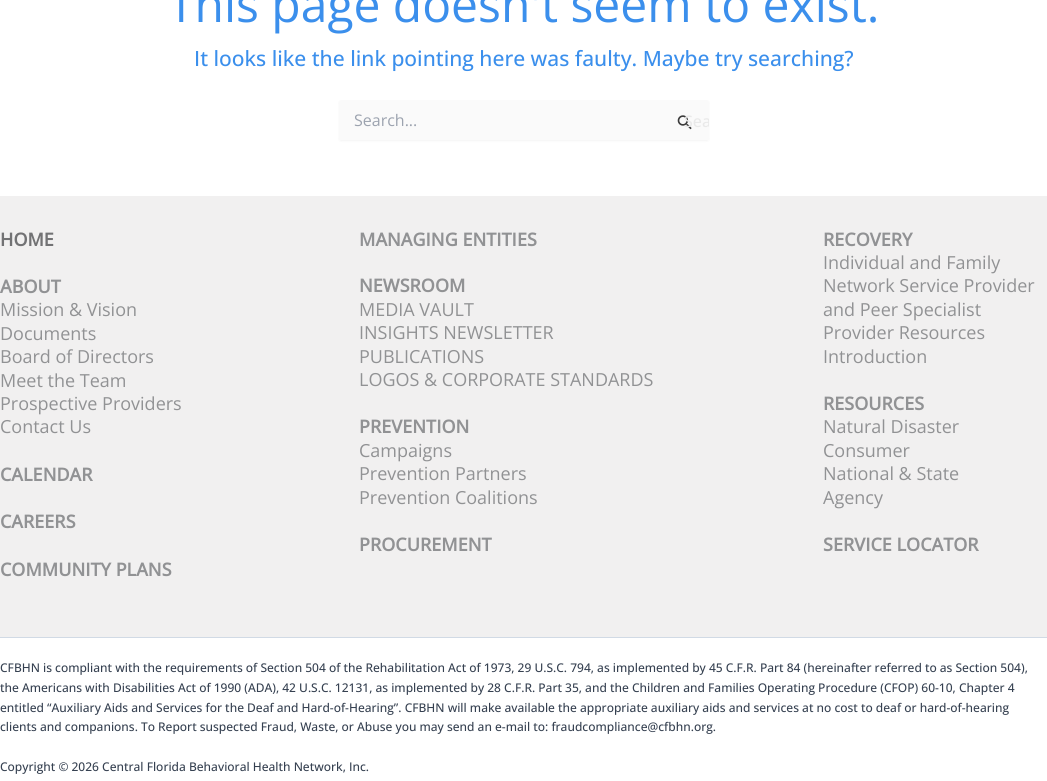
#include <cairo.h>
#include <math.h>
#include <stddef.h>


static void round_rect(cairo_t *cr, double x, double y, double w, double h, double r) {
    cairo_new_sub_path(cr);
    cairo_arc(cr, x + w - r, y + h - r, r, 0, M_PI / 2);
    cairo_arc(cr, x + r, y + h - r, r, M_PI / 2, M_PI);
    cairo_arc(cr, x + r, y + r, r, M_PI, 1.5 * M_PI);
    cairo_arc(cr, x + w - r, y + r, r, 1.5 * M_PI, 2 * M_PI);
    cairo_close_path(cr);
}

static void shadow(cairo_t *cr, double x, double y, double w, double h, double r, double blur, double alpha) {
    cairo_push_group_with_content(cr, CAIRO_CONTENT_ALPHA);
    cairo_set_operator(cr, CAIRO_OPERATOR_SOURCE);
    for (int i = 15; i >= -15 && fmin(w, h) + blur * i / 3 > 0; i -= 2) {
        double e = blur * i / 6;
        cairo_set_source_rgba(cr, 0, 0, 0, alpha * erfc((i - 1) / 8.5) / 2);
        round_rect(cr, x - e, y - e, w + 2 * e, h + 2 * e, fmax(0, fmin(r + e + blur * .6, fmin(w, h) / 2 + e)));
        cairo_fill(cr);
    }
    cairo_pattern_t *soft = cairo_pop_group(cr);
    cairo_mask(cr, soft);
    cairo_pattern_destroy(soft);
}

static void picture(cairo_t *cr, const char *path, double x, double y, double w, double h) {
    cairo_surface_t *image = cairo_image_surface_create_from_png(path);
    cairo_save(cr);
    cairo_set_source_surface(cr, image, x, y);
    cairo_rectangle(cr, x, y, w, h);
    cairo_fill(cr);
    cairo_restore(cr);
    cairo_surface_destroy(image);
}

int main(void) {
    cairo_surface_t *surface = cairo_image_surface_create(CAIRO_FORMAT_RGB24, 1047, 781);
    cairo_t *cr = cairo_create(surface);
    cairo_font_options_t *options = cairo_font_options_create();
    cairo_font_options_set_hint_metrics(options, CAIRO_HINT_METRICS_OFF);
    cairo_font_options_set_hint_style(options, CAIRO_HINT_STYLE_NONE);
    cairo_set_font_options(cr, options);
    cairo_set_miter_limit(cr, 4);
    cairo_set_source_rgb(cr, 1, 1, 1);
    cairo_paint(cr);
    cairo_select_font_face(cr, "Open Sans", CAIRO_FONT_SLANT_NORMAL, CAIRO_FONT_WEIGHT_NORMAL);
    cairo_set_font_size(cr, 48);
    cairo_set_source_rgb(cr, 0.231, 0.561, 0.925);
    cairo_move_to(cr, 168, 22);
    cairo_show_text(cr, "This page doesn't seem to exist.");
    cairo_select_font_face(cr, "Open Sans Medium", CAIRO_FONT_SLANT_NORMAL, CAIRO_FONT_WEIGHT_NORMAL);
    cairo_set_font_size(cr, 21);
    cairo_move_to(cr, 194, 66);
    cairo_show_text(cr, "It looks like the link pointing here was faulty. Maybe try searching?");
    cairo_set_source_rgb(cr, 0, 0, 0);
    shadow(cr, 339, 101, 370, 40, 2, 1, 0.05);
    cairo_set_source_rgb(cr, 0.98, 0.98, 0.98);
    round_rect(cr, 339, 100, 370, 40, 2);
    cairo_fill(cr);
    cairo_select_font_face(cr, "Open Sans", CAIRO_FONT_SLANT_NORMAL, CAIRO_FONT_WEIGHT_NORMAL);
    cairo_set_font_size(cr, 16);
    cairo_set_source_rgb(cr, 0.612, 0.639, 0.686);
    cairo_move_to(cr, 354, 126);
    cairo_show_text(cr, "Search...");
    picture(cr, "img1.png", 677, 115, 15, 15);
    cairo_save(cr);
    round_rect(cr, 664, 100, 45, 42, 2);
    cairo_clip(cr);
    cairo_select_font_face(cr, "Open Sans Medium", CAIRO_FONT_SLANT_NORMAL, CAIRO_FONT_WEIGHT_NORMAL);
    cairo_set_source_rgb(cr, 0.914, 0.914, 0.914);
    cairo_move_to(cr, 684, 127);
    cairo_show_text(cr, "Sea");
    cairo_restore(cr);
    cairo_set_source_rgb(cr, 0.945, 0.941, 0.941);
    cairo_rectangle(cr, 0, 196, 1047, 441);
    cairo_fill(cr);
    cairo_select_font_face(cr, "Open Sans", CAIRO_FONT_SLANT_NORMAL, CAIRO_FONT_WEIGHT_BOLD);
    cairo_set_font_size(cr, 18);
    cairo_set_source_rgb(cr, 0.447, 0.447, 0.455);
    cairo_move_to(cr, 0, 246);
    cairo_show_text(cr, "HOME");
    cairo_set_source_rgb(cr, 0.569, 0.573, 0.58);
    cairo_move_to(cr, 0, 293);
    cairo_show_text(cr, "ABOUT");
    cairo_select_font_face(cr, "Open Sans", CAIRO_FONT_SLANT_NORMAL, CAIRO_FONT_WEIGHT_NORMAL);
    cairo_move_to(cr, 0, 316);
    cairo_show_text(cr, "Mission & Vision");
    cairo_move_to(cr, 0, 340);
    cairo_show_text(cr, "Documents");
    cairo_move_to(cr, 0, 363);
    cairo_show_text(cr, "Board of Directors");
    cairo_move_to(cr, 0, 387);
    cairo_show_text(cr, "Meet the Team");
    cairo_move_to(cr, 0, 410);
    cairo_show_text(cr, "Prospective Providers");
    cairo_move_to(cr, 0, 433);
    cairo_show_text(cr, "Contact Us");
    cairo_select_font_face(cr, "Open Sans", CAIRO_FONT_SLANT_NORMAL, CAIRO_FONT_WEIGHT_BOLD);
    cairo_move_to(cr, 0, 481);
    cairo_show_text(cr, "CALENDAR");
    cairo_move_to(cr, 0, 528);
    cairo_show_text(cr, "CAREERS");
    cairo_move_to(cr, 0, 576);
    cairo_show_text(cr, "COMMUNITY PLANS");
    cairo_move_to(cr, 359, 246);
    cairo_show_text(cr, "MANAGING ENTITIES");
    cairo_move_to(cr, 359, 292);
    cairo_show_text(cr, "NEWSROOM");
    cairo_select_font_face(cr, "Open Sans", CAIRO_FONT_SLANT_NORMAL, CAIRO_FONT_WEIGHT_NORMAL);
    cairo_move_to(cr, 359, 316);
    cairo_show_text(cr, "MEDIA VAULT");
    cairo_move_to(cr, 359, 339);
    cairo_show_text(cr, "INSIGHTS NEWSLETTER");
    cairo_move_to(cr, 359, 363);
    cairo_show_text(cr, "PUBLICATIONS");
    cairo_move_to(cr, 359, 386);
    cairo_show_text(cr, "LOGOS & CORPORATE STANDARDS");
    cairo_select_font_face(cr, "Open Sans", CAIRO_FONT_SLANT_NORMAL, CAIRO_FONT_WEIGHT_BOLD);
    cairo_move_to(cr, 359, 433);
    cairo_show_text(cr, "PREVENTION");
    cairo_select_font_face(cr, "Open Sans", CAIRO_FONT_SLANT_NORMAL, CAIRO_FONT_WEIGHT_NORMAL);
    cairo_move_to(cr, 359, 457);
    cairo_show_text(cr, "Campaigns");
    cairo_move_to(cr, 359, 480);
    cairo_show_text(cr, "Prevention Partners");
    cairo_move_to(cr, 359, 504);
    cairo_show_text(cr, "Prevention Coalitions");
    cairo_select_font_face(cr, "Open Sans", CAIRO_FONT_SLANT_NORMAL, CAIRO_FONT_WEIGHT_BOLD);
    cairo_move_to(cr, 359, 551);
    cairo_show_text(cr, "PROCUREMENT");
    cairo_move_to(cr, 823, 246);
    cairo_show_text(cr, "RECOVERY");
    cairo_select_font_face(cr, "Open Sans", CAIRO_FONT_SLANT_NORMAL, CAIRO_FONT_WEIGHT_NORMAL);
    cairo_move_to(cr, 823, 269);
    cairo_show_text(cr, "Individual and Family");
    cairo_move_to(cr, 823, 292);
    cairo_show_text(cr, "Network Service Provider");
    cairo_move_to(cr, 823, 316);
    cairo_show_text(cr, "and Peer Specialist");
    cairo_move_to(cr, 823, 339);
    cairo_show_text(cr, "Provider Resources");
    cairo_move_to(cr, 823, 363);
    cairo_show_text(cr, "Introduction");
    cairo_select_font_face(cr, "Open Sans", CAIRO_FONT_SLANT_NORMAL, CAIRO_FONT_WEIGHT_BOLD);
    cairo_move_to(cr, 823, 410);
    cairo_show_text(cr, "RESOURCES");
    cairo_select_font_face(cr, "Open Sans", CAIRO_FONT_SLANT_NORMAL, CAIRO_FONT_WEIGHT_NORMAL);
    cairo_move_to(cr, 823, 433);
    cairo_show_text(cr, "Natural Disaster");
    cairo_move_to(cr, 823, 457);
    cairo_show_text(cr, "Consumer");
    cairo_move_to(cr, 823, 480);
    cairo_show_text(cr, "National & State");
    cairo_move_to(cr, 823, 504);
    cairo_show_text(cr, "Agency");
    cairo_select_font_face(cr, "Open Sans", CAIRO_FONT_SLANT_NORMAL, CAIRO_FONT_WEIGHT_BOLD);
    cairo_move_to(cr, 823, 551);
    cairo_show_text(cr, "SERVICE LOCATOR");
    cairo_set_source_rgb(cr, 0.82, 0.855, 0.898);
    cairo_rectangle(cr, 0, 637, 1047, 1);
    cairo_fill(cr);
    cairo_select_font_face(cr, "Open Sans Medium", CAIRO_FONT_SLANT_NORMAL, CAIRO_FONT_WEIGHT_NORMAL);
    cairo_set_font_size(cr, 12);
    cairo_set_source_rgb(cr, 0.212, 0.255, 0.318);
    cairo_move_to(cr, 0, 672);
    cairo_show_text(cr, "CFBHN is compliant with the requirements of Section 504 of the Rehabilitation Act of 1973, 29 U.S.C. 794, as implemented by 45 C.F.R. Part 84 (hereinafter referred to as Section 504),");
    cairo_move_to(cr, 0, 692);
    cairo_show_text(cr, "the Americans with Disabilities Act of 1990 (ADA), 42 U.S.C. 12131, as implemented by 28 C.F.R. Part 35, and the Children and Families Operating Procedure (CFOP) 60-10, Chapter 4");
    cairo_move_to(cr, 0, 712);
    cairo_show_text(cr, "entitled “Auxiliary Aids and Services for the Deaf and Hard-of-Hearing”. CFBHN will make available the appropriate auxiliary aids and services at no cost to deaf or hard-of-hearing");
    cairo_move_to(cr, 0, 731);
    cairo_show_text(cr, "clients and companions. To Report suspected Fraud, Waste, or Abuse you may send an e-mail to: fraudcompliance@cfbhn.org.");
    cairo_move_to(cr, 0, 771);
    cairo_show_text(cr, "Copyright © 2026 Central Florida Behavioral Health Network, Inc.");
    cairo_surface_write_to_png(surface, "page.png");
    cairo_font_options_destroy(options);
    cairo_destroy(cr);
    cairo_surface_destroy(surface);
    return 0;
}
